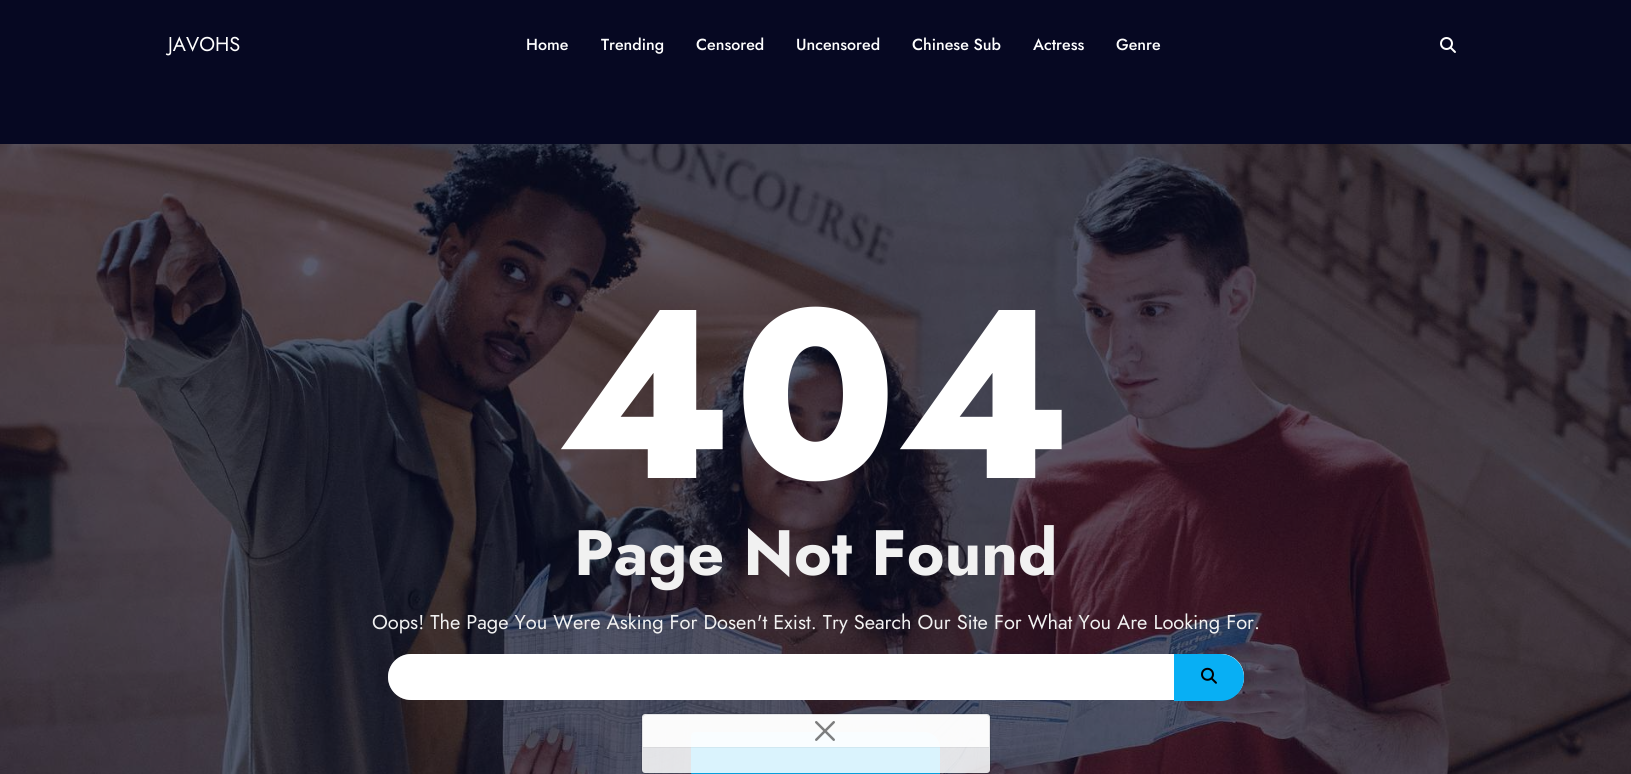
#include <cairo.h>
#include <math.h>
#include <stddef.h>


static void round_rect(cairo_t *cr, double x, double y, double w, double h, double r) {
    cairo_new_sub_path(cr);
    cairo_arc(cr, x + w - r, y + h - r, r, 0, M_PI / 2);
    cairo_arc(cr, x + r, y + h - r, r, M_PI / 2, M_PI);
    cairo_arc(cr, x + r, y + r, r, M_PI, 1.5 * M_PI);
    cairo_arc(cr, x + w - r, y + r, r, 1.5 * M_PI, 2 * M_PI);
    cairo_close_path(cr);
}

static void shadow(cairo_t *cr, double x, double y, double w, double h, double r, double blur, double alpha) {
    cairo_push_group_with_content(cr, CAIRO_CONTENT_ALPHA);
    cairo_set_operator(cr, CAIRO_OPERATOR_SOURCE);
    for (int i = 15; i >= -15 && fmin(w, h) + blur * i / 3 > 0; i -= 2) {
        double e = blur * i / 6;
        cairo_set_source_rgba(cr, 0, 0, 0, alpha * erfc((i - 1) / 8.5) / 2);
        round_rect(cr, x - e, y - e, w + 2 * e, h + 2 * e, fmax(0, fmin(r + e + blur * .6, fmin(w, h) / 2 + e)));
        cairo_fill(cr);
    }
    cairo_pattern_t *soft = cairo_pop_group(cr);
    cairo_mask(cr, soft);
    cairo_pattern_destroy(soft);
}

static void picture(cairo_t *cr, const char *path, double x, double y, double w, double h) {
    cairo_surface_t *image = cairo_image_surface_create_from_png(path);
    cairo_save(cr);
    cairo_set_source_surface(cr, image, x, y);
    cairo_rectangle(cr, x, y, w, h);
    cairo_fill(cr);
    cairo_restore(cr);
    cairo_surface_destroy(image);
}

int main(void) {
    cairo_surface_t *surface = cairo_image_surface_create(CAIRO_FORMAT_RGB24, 1631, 774);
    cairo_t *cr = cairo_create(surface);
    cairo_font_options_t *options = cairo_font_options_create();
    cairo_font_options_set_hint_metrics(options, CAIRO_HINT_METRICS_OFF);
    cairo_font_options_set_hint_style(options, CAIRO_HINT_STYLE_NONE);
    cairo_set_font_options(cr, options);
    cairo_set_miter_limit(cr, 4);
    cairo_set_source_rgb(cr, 0.024, 0.035, 0.133);
    cairo_paint(cr);
    cairo_select_font_face(cr, "Jost", CAIRO_FONT_SLANT_NORMAL, CAIRO_FONT_WEIGHT_NORMAL);
    cairo_set_font_size(cr, 20);
    cairo_set_source_rgb(cr, 1, 1, 1);
    cairo_move_to(cr, 168, 51);
    cairo_show_text(cr, "JAVOHS");
    cairo_select_font_face(cr, "Jost Medium", CAIRO_FONT_SLANT_NORMAL, CAIRO_FONT_WEIGHT_NORMAL);
    cairo_set_font_size(cr, 16);
    cairo_move_to(cr, 526, 50);
    cairo_show_text(cr, "Home");
    cairo_move_to(cr, 601, 50);
    cairo_show_text(cr, "Trending");
    cairo_move_to(cr, 696, 50);
    cairo_show_text(cr, "Censored");
    cairo_move_to(cr, 796, 50);
    cairo_show_text(cr, "Uncensored");
    cairo_move_to(cr, 912, 50);
    cairo_show_text(cr, "Chinese Sub");
    cairo_move_to(cr, 1033, 50);
    cairo_show_text(cr, "Actress");
    cairo_move_to(cr, 1116, 50);
    cairo_show_text(cr, "Genre");
    picture(cr, "img1.png", 1440, 37, 16, 16);
    picture(cr, "img2.png", 0, 144, 1631, 630);
    cairo_select_font_face(cr, "Jost ExtraBold", CAIRO_FONT_SLANT_NORMAL, CAIRO_FONT_WEIGHT_NORMAL);
    cairo_set_font_size(cr, 240);
    cairo_move_to(cr, 558, 478);
    cairo_show_text(cr, "404");
    cairo_select_font_face(cr, "Jost", CAIRO_FONT_SLANT_NORMAL, CAIRO_FONT_WEIGHT_BOLD);
    cairo_set_font_size(cr, 64);
    cairo_set_source_rgb(cr, 0.945, 0.945, 0.945);
    cairo_move_to(cr, 574, 575);
    cairo_show_text(cr, "Page Not Found");
    cairo_select_font_face(cr, "Jost", CAIRO_FONT_SLANT_NORMAL, CAIRO_FONT_WEIGHT_NORMAL);
    cairo_set_font_size(cr, 20);
    cairo_move_to(cr, 372, 629);
    cairo_show_text(cr, "Oops! The Page You Were Asking For Dosen't Exist. Try Search Our Site For What You Are Looking For.");
    cairo_set_source_rgb(cr, 1, 1, 1);
    round_rect(cr, 388, 654, 856, 46, 23);
    cairo_fill(cr);
    round_rect(cr, 389, 655, 854, 44, 22);
    cairo_set_source_rgba(cr, 1, 1, 1, 0.5);
    cairo_stroke(cr);
    cairo_set_source_rgb(cr, 0.035, 0.686, 0.957);
    cairo_new_path(cr);
    cairo_move_to(cr, 1174, 654);
    cairo_line_to(cr, 1220.5, 654);
    cairo_curve_to(cr, 1233.5, 654, 1244, 664.5, 1244, 677.5);
    cairo_curve_to(cr, 1244, 690.5, 1233.5, 701, 1220.5, 701);
    cairo_line_to(cr, 1174, 701);
    cairo_close_path(cr);
    cairo_fill(cr);
    picture(cr, "img3.png", 1201, 667, 16, 17);
    cairo_set_source_rgb(cr, 0.024, 0.035, 0.133);
    shadow(cr, 696, 740, 239, 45, 11, 5, 0.15);
    cairo_set_source_rgb(cr, 0.035, 0.686, 0.957);
    cairo_new_path(cr);
    cairo_move_to(cr, 695, 733);
    cairo_line_to(cr, 924, 733);
    cairo_curve_to(cr, 932.5, 733, 939, 739.5, 939, 748);
    cairo_line_to(cr, 939, 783);
    cairo_curve_to(cr, 939, 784.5, 937.5, 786, 936, 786);
    cairo_line_to(cr, 707, 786);
    cairo_curve_to(cr, 698.5, 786, 692, 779.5, 692, 771);
    cairo_line_to(cr, 692, 736);
    cairo_curve_to(cr, 692, 734.5, 693.5, 733, 695, 733);
    cairo_close_path(cr);
    cairo_fill_preserve(cr);
    cairo_stroke(cr);
    cairo_set_source_rgba(cr, 1, 1, 1, 0.85);
    round_rect(cr, 642, 714, 348, 59, 3);
    cairo_fill(cr);
    round_rect(cr, 641.5, 713.5, 349, 60, 3.5);
    cairo_set_source_rgba(cr, 0, 0, 0, 0.1);
    cairo_set_line_width(cr, 1);
    cairo_stroke(cr);
    cairo_set_source_rgba(cr, 1, 1, 1, 0.85);
    cairo_new_path(cr);
    cairo_move_to(cr, 646, 715);
    cairo_line_to(cr, 986, 715);
    cairo_curve_to(cr, 987.5, 715, 989, 716.5, 989, 718);
    cairo_line_to(cr, 989, 747);
    cairo_line_to(cr, 643, 747);
    cairo_line_to(cr, 643, 718);
    cairo_curve_to(cr, 643, 716.5, 644.5, 715, 646, 715);
    cairo_close_path(cr);
    cairo_fill(cr);
    cairo_set_source_rgba(cr, 0, 0, 0, 0.05);
    cairo_rectangle(cr, 643, 747, 346, 1);
    cairo_fill(cr);
    picture(cr, "img4.png", 815, 721, 20, 20);
    cairo_surface_write_to_png(surface, "page.png");
    cairo_font_options_destroy(options);
    cairo_destroy(cr);
    cairo_surface_destroy(surface);
    return 0;
}
